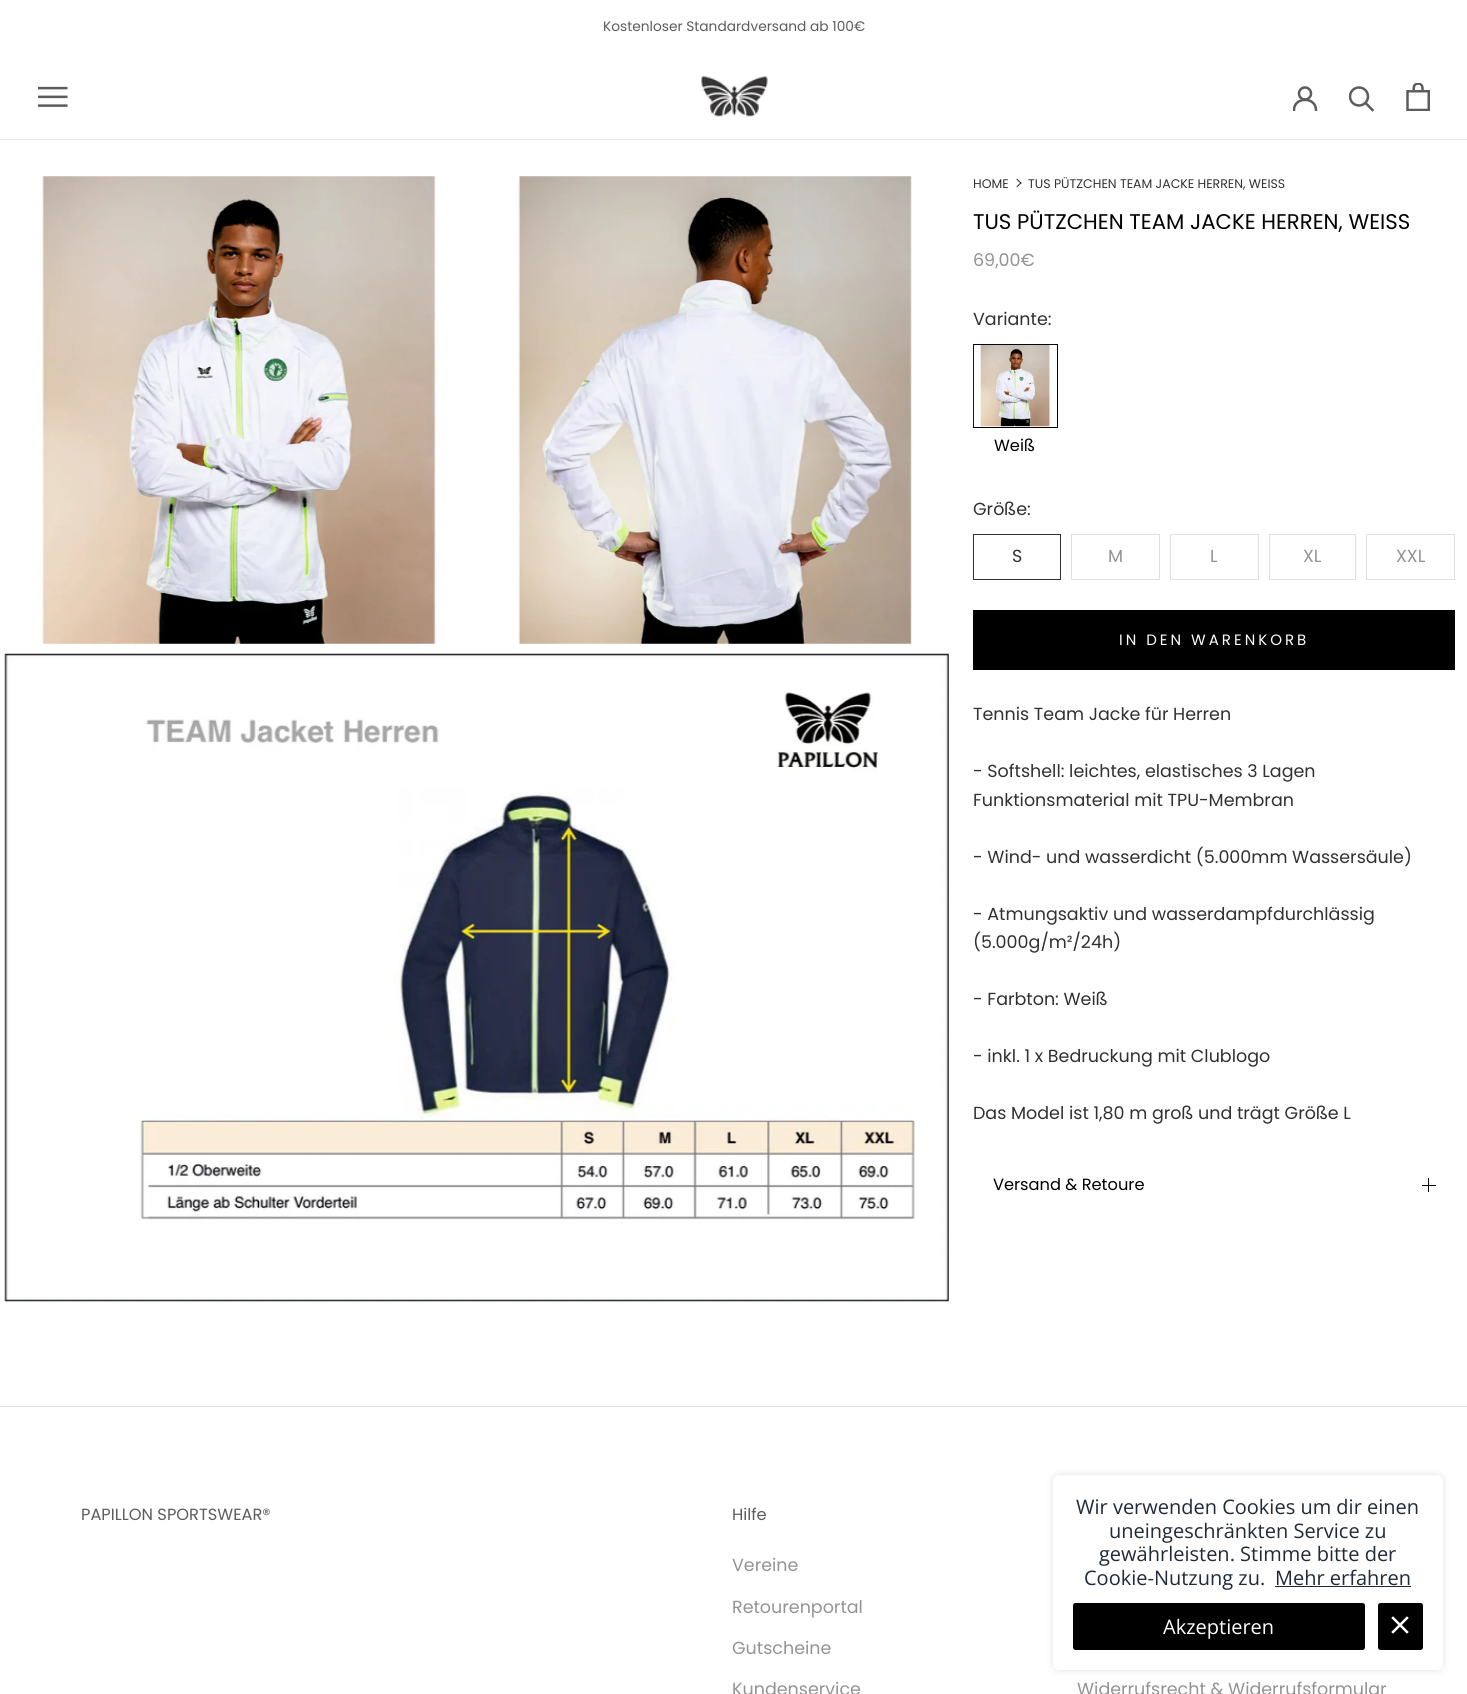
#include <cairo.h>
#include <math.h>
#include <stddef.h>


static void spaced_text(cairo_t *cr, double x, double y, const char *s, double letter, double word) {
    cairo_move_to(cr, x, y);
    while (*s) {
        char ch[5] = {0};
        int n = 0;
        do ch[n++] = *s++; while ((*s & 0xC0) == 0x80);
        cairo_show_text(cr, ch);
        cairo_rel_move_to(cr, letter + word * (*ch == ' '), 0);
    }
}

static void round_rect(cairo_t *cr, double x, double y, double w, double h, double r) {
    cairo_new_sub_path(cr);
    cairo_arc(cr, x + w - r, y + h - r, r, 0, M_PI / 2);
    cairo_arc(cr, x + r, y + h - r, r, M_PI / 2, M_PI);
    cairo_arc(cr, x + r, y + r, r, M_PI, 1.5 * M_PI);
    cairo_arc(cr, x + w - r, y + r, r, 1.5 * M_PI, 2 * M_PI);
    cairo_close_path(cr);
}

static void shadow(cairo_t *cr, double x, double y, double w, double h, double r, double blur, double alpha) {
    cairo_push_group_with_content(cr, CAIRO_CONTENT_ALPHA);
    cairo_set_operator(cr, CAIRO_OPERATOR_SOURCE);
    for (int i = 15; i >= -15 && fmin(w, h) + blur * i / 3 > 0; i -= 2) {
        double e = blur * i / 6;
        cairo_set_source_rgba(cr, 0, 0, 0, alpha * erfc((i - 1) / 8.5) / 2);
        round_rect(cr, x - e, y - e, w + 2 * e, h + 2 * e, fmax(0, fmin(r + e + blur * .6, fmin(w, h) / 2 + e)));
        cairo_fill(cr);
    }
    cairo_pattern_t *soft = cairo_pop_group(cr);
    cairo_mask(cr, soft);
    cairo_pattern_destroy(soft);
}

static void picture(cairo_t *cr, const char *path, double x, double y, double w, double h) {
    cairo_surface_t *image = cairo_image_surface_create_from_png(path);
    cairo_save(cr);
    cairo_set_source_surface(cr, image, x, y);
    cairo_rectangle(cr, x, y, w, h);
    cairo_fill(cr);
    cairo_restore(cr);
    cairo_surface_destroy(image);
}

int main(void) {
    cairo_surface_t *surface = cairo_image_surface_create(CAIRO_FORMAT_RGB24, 1467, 1694);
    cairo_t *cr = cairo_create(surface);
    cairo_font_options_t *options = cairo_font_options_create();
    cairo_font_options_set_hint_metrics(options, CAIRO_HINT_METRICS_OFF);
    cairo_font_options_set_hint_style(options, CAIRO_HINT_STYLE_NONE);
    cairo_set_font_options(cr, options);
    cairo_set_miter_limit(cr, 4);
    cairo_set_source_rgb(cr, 1, 1, 1);
    cairo_paint(cr);
    cairo_select_font_face(cr, "Poppins", CAIRO_FONT_SLANT_NORMAL, CAIRO_FONT_WEIGHT_NORMAL);
    cairo_set_font_size(cr, 13.75);
    cairo_set_source_rgb(cr, 0.361, 0.361, 0.361);
    cairo_move_to(cr, 603, 31);
    cairo_show_text(cr, "Kostenloser Standardversand ab 100€");
    cairo_set_source_rgb(cr, 0.906, 0.906, 0.906);
    cairo_rectangle(cr, 0, 139, 1467, 1);
    cairo_fill(cr);
    picture(cr, "img1.png", 38, 86, 30, 21);
    picture(cr, "img2.png", 701, 76, 67, 41);
    cairo_save(cr);
    cairo_rectangle(cr, 1293, 86, 25, 25);
    cairo_clip(cr);
    cairo_new_path(cr);
    cairo_move_to(cr, 1294, 110);
    cairo_curve_to(cr, 1294, 96.5, 1316, 96.5, 1316, 110);
    cairo_set_source_rgb(cr, 0.361, 0.361, 0.361);
    cairo_set_line_width(cr, 2.5);
    cairo_set_line_cap(cr, CAIRO_LINE_CAP_SQUARE);
    cairo_stroke(cr);
    cairo_restore(cr);
    cairo_arc(cr, 1305, 93.5, 6, 0, 2 * M_PI);
    cairo_set_source_rgb(cr, 0.361, 0.361, 0.361);
    cairo_set_line_width(cr, 2.5);
    cairo_stroke(cr);
    cairo_new_path(cr);
    cairo_move_to(cr, 1372.5, 110);
    cairo_line_to(cr, 1365.5, 103);
    cairo_set_line_cap(cr, CAIRO_LINE_CAP_SQUARE);
    cairo_stroke(cr);
    cairo_save(cr);
    cairo_rectangle(cr, 1349, 86, 26, 27);
    cairo_clip(cr);
    cairo_arc(cr, 1359, 96.5, 9, 0, 2 * M_PI);
    cairo_set_line_cap(cr, CAIRO_LINE_CAP_BUTT);
    cairo_stroke(cr);
    cairo_restore(cr);
    picture(cr, "img3.png", 1406, 83, 24, 28);
    picture(cr, "img4.png", 42, 176, 396, 468);
    picture(cr, "img5.png", 518, 176, 395, 468);
    picture(cr, "img6.png", 4, 653, 945, 649);
    cairo_set_font_size(cr, 12.5);
    cairo_set_source_rgb(cr, 0.192, 0.192, 0.192);
    cairo_move_to(cr, 973, 188);
    cairo_show_text(cr, "HOME");
    cairo_new_path(cr);
    cairo_move_to(cr, 1017, 178.5);
    cairo_line_to(cr, 1021.5, 183);
    cairo_line_to(cr, 1021, 184);
    cairo_line_to(cr, 1016.5, 179.5);
    cairo_close_path(cr);
    cairo_fill(cr);
    cairo_new_path(cr);
    cairo_move_to(cr, 1021, 182);
    cairo_line_to(cr, 1021.5, 183);
    cairo_line_to(cr, 1017, 187.5);
    cairo_line_to(cr, 1016.5, 186.5);
    cairo_close_path(cr);
    cairo_fill(cr);
    cairo_move_to(cr, 1028, 188);
    cairo_show_text(cr, "TUS PÜTZCHEN TEAM JACKE HERREN, WEISS");
    cairo_set_font_size(cr, 21.25);
    cairo_set_source_rgb(cr, 0, 0, 0);
    cairo_move_to(cr, 973, 229);
    cairo_show_text(cr, "TUS PÜTZCHEN TEAM JACKE HERREN, WEISS");
    cairo_set_font_size(cr, 17.5);
    cairo_set_source_rgb(cr, 0.576, 0.576, 0.576);
    cairo_move_to(cr, 973, 266);
    cairo_show_text(cr, "69,00€");
    cairo_set_source_rgb(cr, 0.192, 0.192, 0.192);
    cairo_move_to(cr, 973, 325);
    cairo_show_text(cr, "Variante:");
    cairo_rectangle(cr, 973.5, 344.5, 84, 83);
    cairo_set_source_rgb(cr, 0, 0, 0);
    cairo_set_line_width(cr, 1);
    cairo_set_line_cap(cr, CAIRO_LINE_CAP_BUTT);
    cairo_stroke(cr);
    picture(cr, "img7.png", 973, 344, 83, 83);
    cairo_set_font_size(cr, 16.25);
    cairo_move_to(cr, 994, 451);
    cairo_show_text(cr, "Weiß");
    cairo_set_font_size(cr, 17.5);
    cairo_set_source_rgb(cr, 0.192, 0.192, 0.192);
    cairo_move_to(cr, 973, 515);
    cairo_show_text(cr, "Größe:");
    cairo_rectangle(cr, 973.5, 534.5, 87, 45);
    cairo_stroke(cr);
    cairo_move_to(cr, 1012, 562);
    cairo_show_text(cr, "S");
    cairo_rectangle(cr, 1071.5, 534.5, 88, 45);
    cairo_set_source_rgb(cr, 0.878, 0.878, 0.878);
    cairo_stroke(cr);
    cairo_set_source_rgb(cr, 0.576, 0.576, 0.576);
    cairo_move_to(cr, 1108, 562);
    cairo_show_text(cr, "M");
    cairo_rectangle(cr, 1170.5, 534.5, 88, 45);
    cairo_set_source_rgb(cr, 0.878, 0.878, 0.878);
    cairo_stroke(cr);
    cairo_set_source_rgb(cr, 0.576, 0.576, 0.576);
    cairo_move_to(cr, 1210, 562);
    cairo_show_text(cr, "L");
    cairo_rectangle(cr, 1269.5, 534.5, 86, 45);
    cairo_set_source_rgb(cr, 0.878, 0.878, 0.878);
    cairo_stroke(cr);
    cairo_set_source_rgb(cr, 0.576, 0.576, 0.576);
    cairo_move_to(cr, 1303, 562);
    cairo_show_text(cr, "XL");
    cairo_rectangle(cr, 1366.5, 534.5, 88, 45);
    cairo_set_source_rgb(cr, 0.878, 0.878, 0.878);
    cairo_stroke(cr);
    cairo_set_source_rgb(cr, 0.576, 0.576, 0.576);
    cairo_move_to(cr, 1396, 562);
    cairo_show_text(cr, "XXL");
    cairo_rectangle(cr, 973.5, 610.5, 481, 59);
    cairo_set_source_rgb(cr, 0, 0, 0);
    cairo_stroke(cr);
    cairo_rectangle(cr, 974, 611, 480, 58);
    cairo_fill(cr);
    cairo_set_font_size(cr, 15);
    cairo_set_source_rgb(cr, 1, 1, 1);
    spaced_text(cr, 1119, 645, "IN DEN WARENKORB", 3, 0);
    cairo_set_font_size(cr, 17.5);
    cairo_set_source_rgb(cr, 0.192, 0.192, 0.192);
    cairo_move_to(cr, 973, 720);
    cairo_show_text(cr, "Tennis Team Jacke für Herren");
    cairo_move_to(cr, 973, 777);
    cairo_show_text(cr, "- Softshell: leichtes, elastisches 3 Lagen");
    cairo_move_to(cr, 973, 806);
    cairo_show_text(cr, "Funktionsmaterial mit TPU-Membran");
    cairo_move_to(cr, 973, 863);
    cairo_show_text(cr, "- Wind- und wasserdicht (5.000mm Wassersäule)");
    cairo_move_to(cr, 973, 920);
    cairo_show_text(cr, "- Atmungsaktiv und wasserdampfdurchlässig");
    cairo_move_to(cr, 973, 948);
    cairo_show_text(cr, "(5.000g/m²/24h)");
    cairo_move_to(cr, 973, 1005);
    cairo_show_text(cr, "- Farbton: Weiß");
    cairo_move_to(cr, 973, 1062);
    cairo_show_text(cr, "- inkl. 1 x Bedruckung mit Clublogo");
    cairo_move_to(cr, 973, 1119);
    cairo_show_text(cr, "Das Model ist 1,80 m groß und trägt Größe L");
    cairo_set_font_size(cr, 16.25);
    cairo_set_source_rgb(cr, 0, 0, 0);
    cairo_move_to(cr, 993, 1190);
    cairo_show_text(cr, "Versand & Retoure");
    cairo_rectangle(cr, 1428, 1178, 1, 14);
    cairo_fill(cr);
    cairo_rectangle(cr, 1422, 1185, 14, 1);
    cairo_fill(cr);
    cairo_set_source_rgb(cr, 0.878, 0.878, 0.878);
    cairo_rectangle(cr, 0, 1406, 1467, 1);
    cairo_fill(cr);
    cairo_set_source_rgb(cr, 0.361, 0.361, 0.361);
    cairo_move_to(cr, 81, 1520);
    cairo_show_text(cr, "PAPILLON SPORTSWEAR®");
    cairo_move_to(cr, 732, 1520);
    cairo_show_text(cr, "Hilfe");
    cairo_set_font_size(cr, 17.5);
    cairo_set_source_rgb(cr, 0.576, 0.576, 0.576);
    cairo_move_to(cr, 732, 1571);
    cairo_show_text(cr, "Vereine");
    cairo_move_to(cr, 732, 1613);
    cairo_show_text(cr, "Retourenportal");
    cairo_move_to(cr, 732, 1654);
    cairo_show_text(cr, "Gutscheine");
    cairo_move_to(cr, 732, 1695);
    cairo_show_text(cr, "Kundenservice");
    cairo_move_to(cr, 1077, 1695);
    cairo_show_text(cr, "Widerrufsrecht & Widerrufsformular");
    cairo_save(cr);
    cairo_set_fill_rule(cr, CAIRO_FILL_RULE_EVEN_ODD);
    cairo_new_path(cr);
    cairo_move_to(cr, 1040, 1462);
    cairo_line_to(cr, 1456, 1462);
    cairo_line_to(cr, 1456, 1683);
    cairo_line_to(cr, 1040, 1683);
    cairo_close_path(cr);
    cairo_move_to(cr, 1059, 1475);
    cairo_line_to(cr, 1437, 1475);
    cairo_curve_to(cr, 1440.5, 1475, 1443, 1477.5, 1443, 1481);
    cairo_line_to(cr, 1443, 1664);
    cairo_curve_to(cr, 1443, 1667.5, 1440.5, 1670, 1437, 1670);
    cairo_line_to(cr, 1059, 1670);
    cairo_curve_to(cr, 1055.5, 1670, 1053, 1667.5, 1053, 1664);
    cairo_line_to(cr, 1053, 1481);
    cairo_curve_to(cr, 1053, 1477.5, 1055.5, 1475, 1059, 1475);
    cairo_close_path(cr);
    cairo_clip(cr);
    cairo_set_source_rgb(cr, 0, 0, 0);
    shadow(cr, 1053, 1475, 390, 195, 6, 4, 0.12);
    cairo_restore(cr);
    cairo_select_font_face(cr, "Open Sans", CAIRO_FONT_SLANT_NORMAL, CAIRO_FONT_WEIGHT_NORMAL);
    cairo_set_font_size(cr, 20);
    cairo_set_source_rgb(cr, 0.129, 0.169, 0.212);
    cairo_move_to(cr, 1076, 1514);
    cairo_show_text(cr, "Wir verwenden Cookies um dir einen");
    cairo_move_to(cr, 1109, 1538);
    cairo_show_text(cr, "uneingeschränkten Service zu");
    cairo_move_to(cr, 1099, 1561);
    cairo_show_text(cr, "gewährleisten. Stimme bitte der");
    cairo_move_to(cr, 1084, 1585);
    cairo_show_text(cr, "Cookie-Nutzung zu.");
    cairo_move_to(cr, 1275, 1585);
    cairo_show_text(cr, "Mehr erfahren");
    cairo_rectangle(cr, 1275, 1586, 136, 1);
    cairo_fill(cr);
    cairo_set_source_rgb(cr, 0, 0, 0);
    round_rect(cr, 1073, 1603, 292, 47, 2.5);
    cairo_fill(cr);
    cairo_set_source_rgb(cr, 1, 1, 1);
    cairo_move_to(cr, 1163, 1634);
    cairo_show_text(cr, "Akzeptieren");
    cairo_set_source_rgb(cr, 0, 0, 0);
    round_rect(cr, 1378, 1603, 45, 47, 2.5);
    cairo_fill(cr);
    picture(cr, "img8.png", 1391, 1616, 18, 18);
    cairo_surface_write_to_png(surface, "page.png");
    cairo_font_options_destroy(options);
    cairo_destroy(cr);
    cairo_surface_destroy(surface);
    return 0;
}
